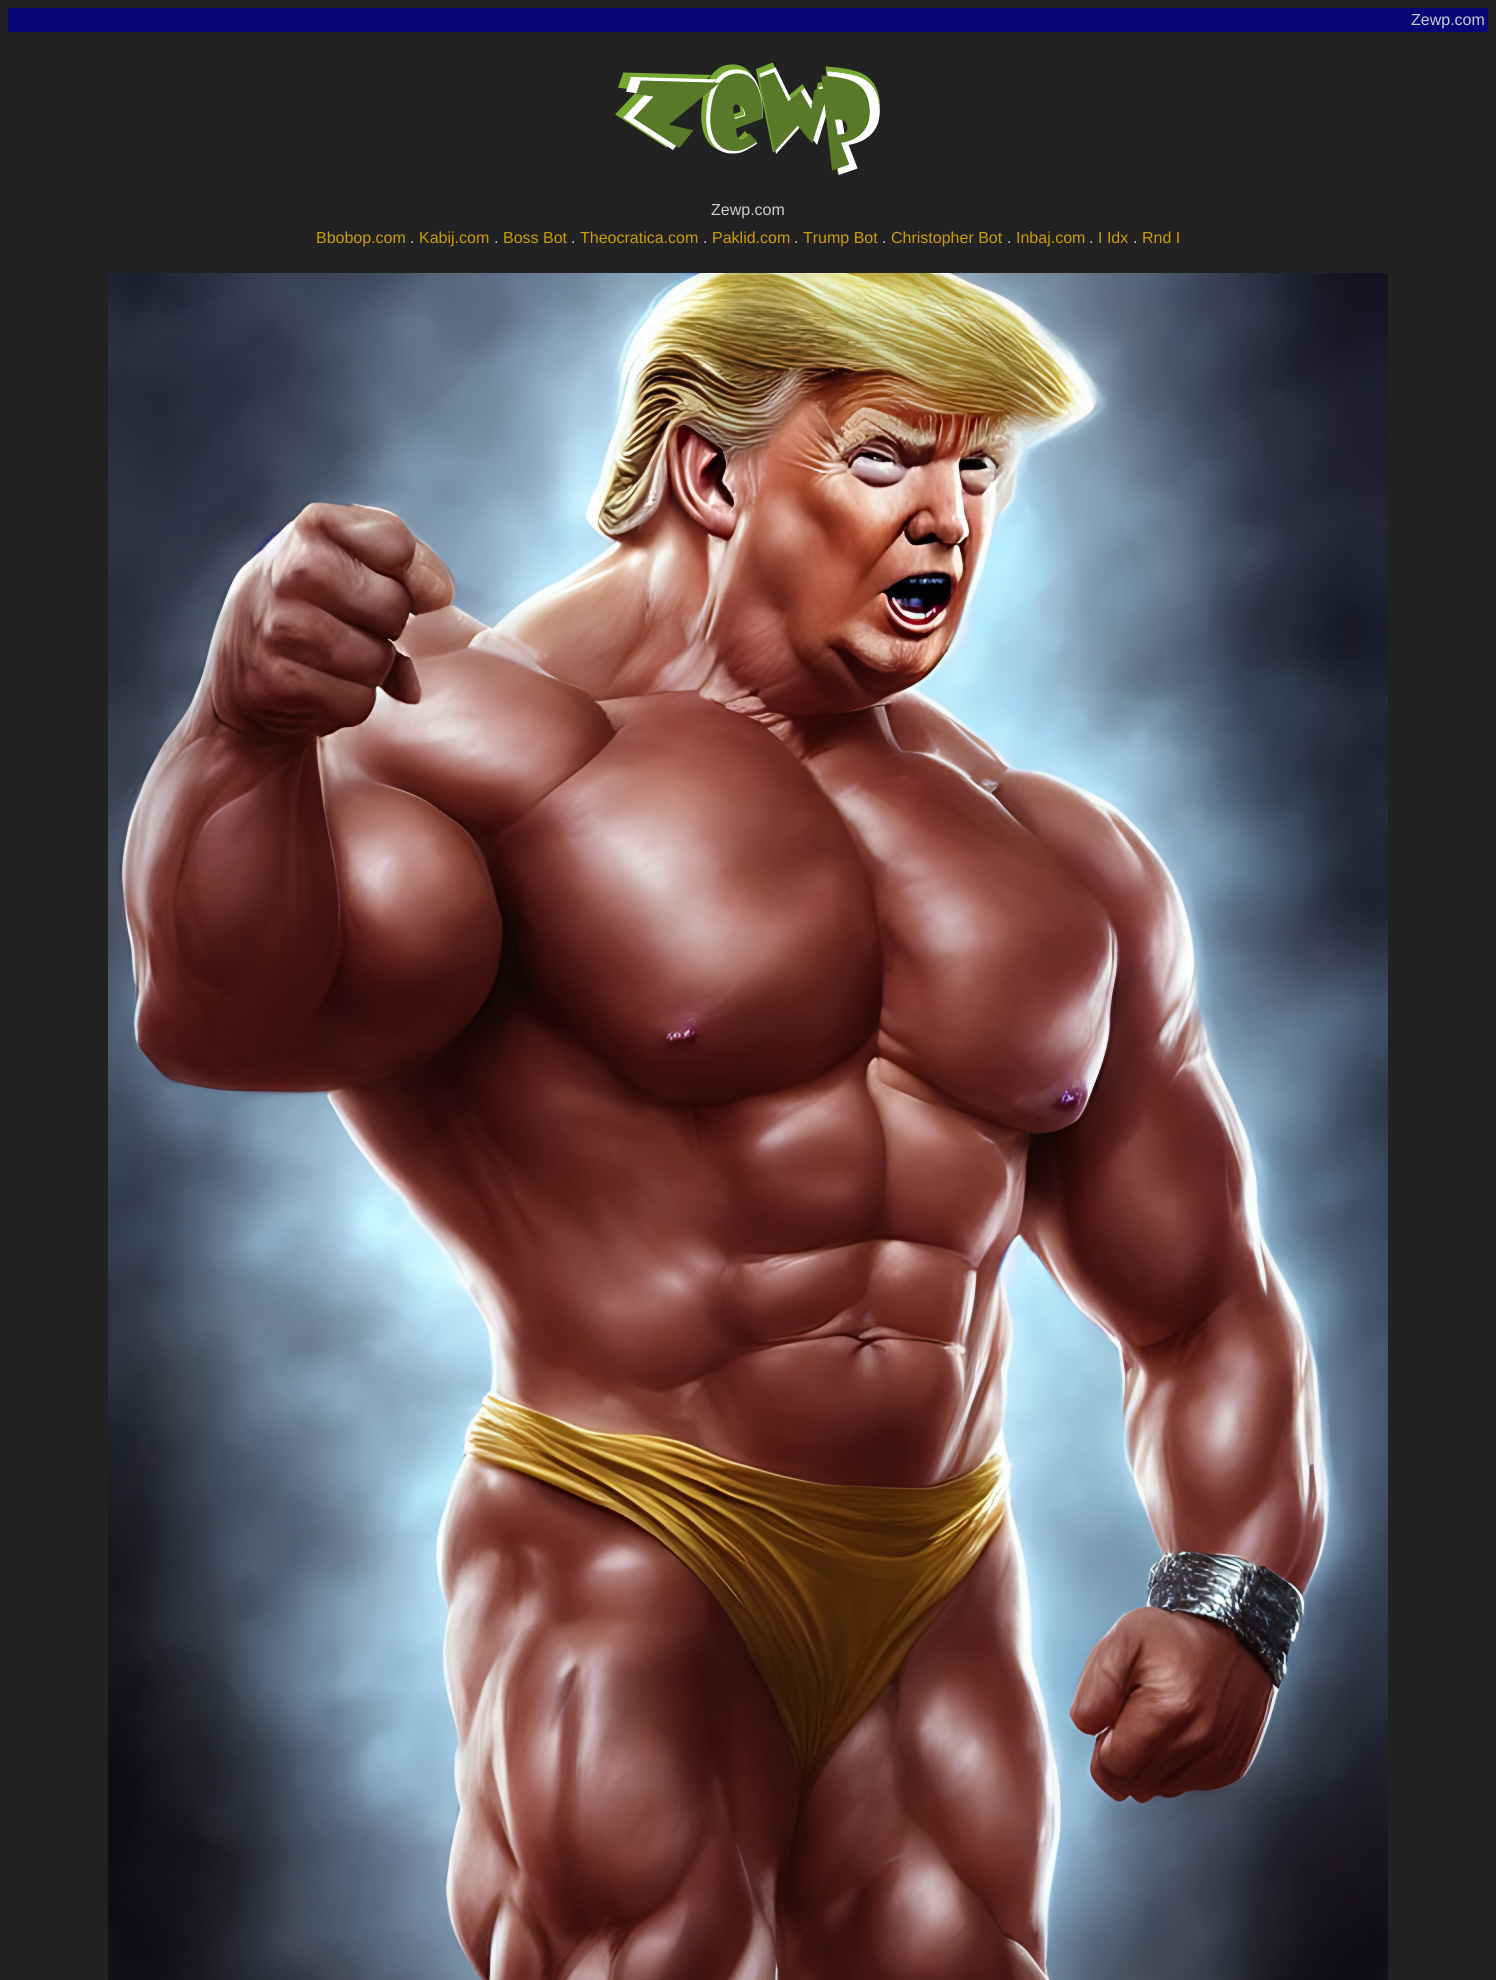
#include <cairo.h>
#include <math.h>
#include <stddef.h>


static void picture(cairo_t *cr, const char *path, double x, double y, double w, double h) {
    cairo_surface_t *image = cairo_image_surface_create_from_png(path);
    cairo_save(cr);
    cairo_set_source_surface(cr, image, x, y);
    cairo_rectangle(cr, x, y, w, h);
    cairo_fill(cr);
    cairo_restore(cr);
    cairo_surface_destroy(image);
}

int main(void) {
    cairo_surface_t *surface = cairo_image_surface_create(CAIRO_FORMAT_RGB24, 1496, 1980);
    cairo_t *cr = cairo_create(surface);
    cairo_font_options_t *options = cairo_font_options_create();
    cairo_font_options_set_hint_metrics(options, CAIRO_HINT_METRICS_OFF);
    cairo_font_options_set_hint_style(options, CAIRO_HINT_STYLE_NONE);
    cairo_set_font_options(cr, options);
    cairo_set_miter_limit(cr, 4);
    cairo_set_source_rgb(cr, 0.133, 0.133, 0.133);
    cairo_paint(cr);
    cairo_set_source_rgb(cr, 0.027, 0.027, 0.467);
    cairo_rectangle(cr, 8, 8, 1480, 24);
    cairo_fill(cr);
    cairo_select_font_face(cr, "Liberation Sans", CAIRO_FONT_SLANT_NORMAL, CAIRO_FONT_WEIGHT_NORMAL);
    cairo_set_font_size(cr, 16);
    cairo_set_source_rgb(cr, 0.8, 0.8, 0.8);
    cairo_move_to(cr, 1411, 25);
    cairo_show_text(cr, "Zewp.com");
    picture(cr, "img1.png", 615, 62, 266, 113);
    cairo_move_to(cr, 711, 215);
    cairo_show_text(cr, "Zewp.com");
    cairo_set_source_rgb(cr, 0.796, 0.616, 0.024);
    cairo_move_to(cr, 316, 243);
    cairo_show_text(cr, "Bbobop.com");
    cairo_set_source_rgb(cr, 0.8, 0.8, 0.8);
    cairo_move_to(cr, 410, 243);
    cairo_show_text(cr, ".");
    cairo_set_source_rgb(cr, 0.796, 0.616, 0.024);
    cairo_move_to(cr, 419, 243);
    cairo_show_text(cr, "Kabij.com");
    cairo_set_source_rgb(cr, 0.8, 0.8, 0.8);
    cairo_move_to(cr, 494, 243);
    cairo_show_text(cr, ".");
    cairo_set_source_rgb(cr, 0.796, 0.616, 0.024);
    cairo_move_to(cr, 503, 243);
    cairo_show_text(cr, "Boss Bot");
    cairo_set_source_rgb(cr, 0.8, 0.8, 0.8);
    cairo_move_to(cr, 571, 243);
    cairo_show_text(cr, ".");
    cairo_set_source_rgb(cr, 0.796, 0.616, 0.024);
    cairo_move_to(cr, 580, 243);
    cairo_show_text(cr, "Theocratica.com");
    cairo_set_source_rgb(cr, 0.8, 0.8, 0.8);
    cairo_move_to(cr, 703, 243);
    cairo_show_text(cr, ".");
    cairo_set_source_rgb(cr, 0.796, 0.616, 0.024);
    cairo_move_to(cr, 712, 243);
    cairo_show_text(cr, "Paklid.com");
    cairo_set_source_rgb(cr, 0.8, 0.8, 0.8);
    cairo_move_to(cr, 794, 243);
    cairo_show_text(cr, ".");
    cairo_set_source_rgb(cr, 0.796, 0.616, 0.024);
    cairo_move_to(cr, 803, 243);
    cairo_show_text(cr, "Trump Bot");
    cairo_set_source_rgb(cr, 0.8, 0.8, 0.8);
    cairo_move_to(cr, 882, 243);
    cairo_show_text(cr, ".");
    cairo_set_source_rgb(cr, 0.796, 0.616, 0.024);
    cairo_move_to(cr, 891, 243);
    cairo_show_text(cr, "Christopher Bot");
    cairo_set_source_rgb(cr, 0.8, 0.8, 0.8);
    cairo_move_to(cr, 1007, 243);
    cairo_show_text(cr, ".");
    cairo_set_source_rgb(cr, 0.796, 0.616, 0.024);
    cairo_move_to(cr, 1016, 243);
    cairo_show_text(cr, "Inbaj.com");
    cairo_set_source_rgb(cr, 0.8, 0.8, 0.8);
    cairo_move_to(cr, 1089, 243);
    cairo_show_text(cr, ".");
    cairo_set_source_rgb(cr, 0.796, 0.616, 0.024);
    cairo_move_to(cr, 1098, 243);
    cairo_show_text(cr, "I Idx");
    cairo_set_source_rgb(cr, 0.8, 0.8, 0.8);
    cairo_move_to(cr, 1133, 243);
    cairo_show_text(cr, ".");
    cairo_set_source_rgb(cr, 0.796, 0.616, 0.024);
    cairo_move_to(cr, 1142, 243);
    cairo_show_text(cr, "Rnd I");
    picture(cr, "img2.png", 108, 273, 1280, 1707);
    cairo_surface_write_to_png(surface, "page.png");
    cairo_font_options_destroy(options);
    cairo_destroy(cr);
    cairo_surface_destroy(surface);
    return 0;
}
